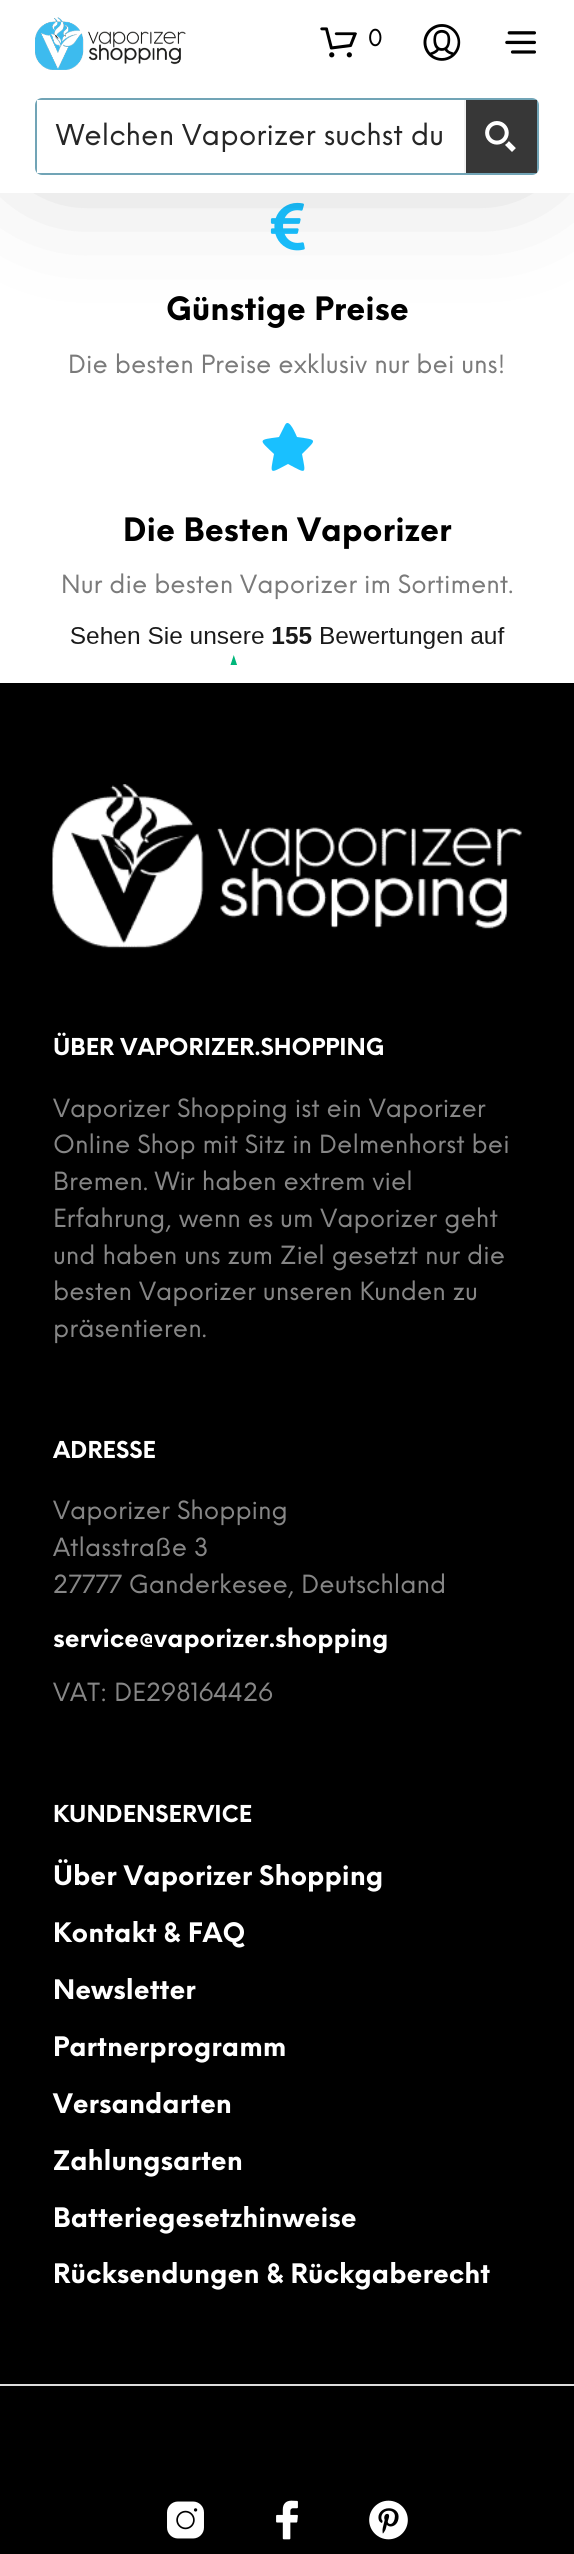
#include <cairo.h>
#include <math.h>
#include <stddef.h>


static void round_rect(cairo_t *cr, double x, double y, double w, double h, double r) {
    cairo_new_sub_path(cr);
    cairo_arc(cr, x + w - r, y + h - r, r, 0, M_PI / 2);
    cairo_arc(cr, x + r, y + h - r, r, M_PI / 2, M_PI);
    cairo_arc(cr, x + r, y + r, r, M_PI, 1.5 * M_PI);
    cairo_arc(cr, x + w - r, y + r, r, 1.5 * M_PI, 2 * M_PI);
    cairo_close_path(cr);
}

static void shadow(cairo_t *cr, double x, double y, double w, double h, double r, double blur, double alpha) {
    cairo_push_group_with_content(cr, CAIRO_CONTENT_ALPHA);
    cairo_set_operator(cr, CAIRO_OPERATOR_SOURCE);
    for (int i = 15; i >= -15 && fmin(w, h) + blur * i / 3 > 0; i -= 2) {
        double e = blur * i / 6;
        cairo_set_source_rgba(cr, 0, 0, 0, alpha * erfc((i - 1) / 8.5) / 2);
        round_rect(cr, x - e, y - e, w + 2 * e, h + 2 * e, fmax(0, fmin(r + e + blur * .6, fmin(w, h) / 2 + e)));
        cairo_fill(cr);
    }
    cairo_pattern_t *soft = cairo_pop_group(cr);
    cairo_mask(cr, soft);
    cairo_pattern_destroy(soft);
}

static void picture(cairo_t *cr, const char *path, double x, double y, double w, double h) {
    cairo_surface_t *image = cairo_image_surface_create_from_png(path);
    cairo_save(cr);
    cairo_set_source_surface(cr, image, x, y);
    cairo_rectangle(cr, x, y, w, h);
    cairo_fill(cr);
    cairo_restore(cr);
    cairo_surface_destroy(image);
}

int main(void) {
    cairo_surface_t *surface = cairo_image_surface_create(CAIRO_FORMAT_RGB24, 574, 2554);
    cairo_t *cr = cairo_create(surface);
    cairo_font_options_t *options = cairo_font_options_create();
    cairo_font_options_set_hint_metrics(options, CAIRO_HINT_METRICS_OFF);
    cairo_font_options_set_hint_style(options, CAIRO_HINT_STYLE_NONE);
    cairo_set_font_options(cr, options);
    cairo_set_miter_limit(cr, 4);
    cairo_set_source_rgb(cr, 1, 1, 1);
    cairo_paint(cr);
    picture(cr, "img6.png", 270, 202, 35, 49);
    cairo_set_source_rgb(cr, 0, 0, 0);
    shadow(cr, 44, 51, 479, 98, 0, 71, 0.29);
    cairo_set_source_rgb(cr, 1, 1, 1);
    cairo_rectangle(cr, 0, 0, 574, 193);
    cairo_fill(cr);
    picture(cr, "img1.png", 35, 17, 151, 53);
    picture(cr, "img2.png", 320, 27, 37, 31);
    cairo_select_font_face(cr, "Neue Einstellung", CAIRO_FONT_SLANT_NORMAL, CAIRO_FONT_WEIGHT_NORMAL);
    cairo_set_font_size(cr, 22.75);
    cairo_set_source_rgb(cr, 0, 0, 0);
    cairo_move_to(cr, 368, 46);
    cairo_show_text(cr, "0");
    picture(cr, "img3.png", 423, 24, 38, 37);
    picture(cr, "img4.png", 505, 31, 31, 23);
    cairo_set_source_rgb(cr, 0.443, 0.643, 0.714);
    cairo_set_fill_rule(cr, CAIRO_FILL_RULE_EVEN_ODD);
    cairo_new_path(cr);
    cairo_move_to(cr, 35, 105);
    cairo_line_to(cr, 35, 168);
    cairo_curve_to(cr, 35, 170, 36, 172, 37, 173);
    cairo_line_to(cr, 37, 100);
    cairo_curve_to(cr, 36, 101, 35, 103, 35, 105);
    cairo_close_path(cr);
    cairo_move_to(cr, 42, 98);
    cairo_curve_to(cr, 40, 98, 38, 99, 37, 100);
    cairo_line_to(cr, 537, 100);
    cairo_curve_to(cr, 536, 99, 534, 98, 532, 98);
    cairo_close_path(cr);
    cairo_move_to(cr, 539, 105);
    cairo_curve_to(cr, 539, 103, 538, 101, 537, 100);
    cairo_line_to(cr, 537, 173);
    cairo_curve_to(cr, 538, 172, 539, 170, 539, 168);
    cairo_close_path(cr);
    cairo_move_to(cr, 532, 175);
    cairo_curve_to(cr, 534, 175, 536, 174, 537, 173);
    cairo_line_to(cr, 37, 173);
    cairo_curve_to(cr, 38, 174, 40, 175, 42, 175);
    cairo_close_path(cr);
    cairo_fill(cr);
    cairo_set_font_size(cr, 28);
    cairo_set_source_rgb(cr, 0.149, 0.149, 0.149);
    cairo_move_to(cr, 56, 145);
    cairo_show_text(cr, "Welchen Vaporizer suchst du");
    cairo_set_source_rgb(cr, 0.216, 0.216, 0.216);
    cairo_rectangle(cr, 466, 100, 71, 73);
    cairo_fill(cr);
    cairo_set_source_rgb(cr, 0.945, 0.945, 0.945);
    cairo_rectangle(cr, 464, 100, 2, 73);
    cairo_fill(cr);
    picture(cr, "img5.png", 485, 121, 31, 31);
    cairo_select_font_face(cr, "Neue Einstellung", CAIRO_FONT_SLANT_NORMAL, CAIRO_FONT_WEIGHT_BOLD);
    cairo_set_font_size(cr, 31.5);
    cairo_set_source_rgb(cr, 0, 0, 0);
    cairo_move_to(cr, 166, 320);
    cairo_show_text(cr, "Günstige Preise");
    cairo_select_font_face(cr, "Neue Einstellung", CAIRO_FONT_SLANT_NORMAL, CAIRO_FONT_WEIGHT_NORMAL);
    cairo_set_font_size(cr, 24.5);
    cairo_set_source_rgb(cr, 0.478, 0.478, 0.478);
    cairo_move_to(cr, 68, 373);
    cairo_show_text(cr, "Die besten Preise exklusiv nur bei uns!");
    cairo_set_source_rgb(cr, 0.098, 0.753, 1);
    cairo_set_fill_rule(cr, CAIRO_FILL_RULE_WINDING);
    cairo_new_path(cr);
    cairo_move_to(cr, 285, 425);
    cairo_line_to(cr, 279, 437);
    cairo_curve_to(cr, 258, 440, 258, 439, 274, 454);
    cairo_curve_to(cr, 270, 475, 269, 474, 288, 464);
    cairo_curve_to(cr, 307, 474, 306, 475, 302, 454);
    cairo_curve_to(cr, 317, 439, 318, 440, 297, 437);
    cairo_curve_to(cr, 296, 435, 289, 417, 285, 425);
    cairo_close_path(cr);
    cairo_fill(cr);
    cairo_select_font_face(cr, "Neue Einstellung", CAIRO_FONT_SLANT_NORMAL, CAIRO_FONT_WEIGHT_BOLD);
    cairo_set_font_size(cr, 31.5);
    cairo_set_source_rgb(cr, 0, 0, 0);
    cairo_move_to(cr, 123, 541);
    cairo_show_text(cr, "Die Besten Vaporizer");
    cairo_select_font_face(cr, "Neue Einstellung", CAIRO_FONT_SLANT_NORMAL, CAIRO_FONT_WEIGHT_NORMAL);
    cairo_set_font_size(cr, 24.5);
    cairo_set_source_rgb(cr, 0.478, 0.478, 0.478);
    cairo_move_to(cr, 61, 593);
    cairo_show_text(cr, "Nur die besten Vaporizer im Sortiment.");
    picture(cr, "img7.png", 71, 627, 434, 38);
    cairo_set_source_rgb(cr, 0, 0, 0);
    cairo_rectangle(cr, 0, 683, 574, 1871);
    cairo_fill(cr);
    cairo_set_source_rgb(cr, 0.867, 0.867, 0.867);
    cairo_rectangle(cr, 0, 2384, 574, 2);
    cairo_fill(cr);
    picture(cr, "img8.png", 52, 784, 470, 165);
    cairo_select_font_face(cr, "Neue Einstellung", CAIRO_FONT_SLANT_NORMAL, CAIRO_FONT_WEIGHT_BOLD);
    cairo_set_font_size(cr, 22.75);
    cairo_set_source_rgb(cr, 1, 1, 1);
    cairo_move_to(cr, 53, 1055);
    cairo_show_text(cr, "ÜBER VAPORIZER.SHOPPING");
    cairo_select_font_face(cr, "Neue Einstellung", CAIRO_FONT_SLANT_NORMAL, CAIRO_FONT_WEIGHT_NORMAL);
    cairo_set_font_size(cr, 24.5);
    cairo_set_source_rgb(cr, 0.525, 0.525, 0.525);
    cairo_move_to(cr, 53, 1117);
    cairo_show_text(cr, "Vaporizer Shopping ist ein Vaporizer");
    cairo_move_to(cr, 53, 1153);
    cairo_show_text(cr, "Online Shop mit Sitz in Delmenhorst bei");
    cairo_move_to(cr, 53, 1190);
    cairo_show_text(cr, "Bremen. Wir haben extrem viel");
    cairo_move_to(cr, 53, 1227);
    cairo_show_text(cr, "Erfahrung, wenn es um Vaporizer geht");
    cairo_move_to(cr, 53, 1264);
    cairo_show_text(cr, "und haben uns zum Ziel gesetzt nur die");
    cairo_move_to(cr, 53, 1300);
    cairo_show_text(cr, "besten Vaporizer unseren Kunden zu");
    cairo_move_to(cr, 53, 1337);
    cairo_show_text(cr, "präsentieren.");
    cairo_select_font_face(cr, "Neue Einstellung", CAIRO_FONT_SLANT_NORMAL, CAIRO_FONT_WEIGHT_BOLD);
    cairo_set_font_size(cr, 22.75);
    cairo_set_source_rgb(cr, 1, 1, 1);
    cairo_move_to(cr, 53, 1458);
    cairo_show_text(cr, "ADRESSE");
    cairo_select_font_face(cr, "Neue Einstellung", CAIRO_FONT_SLANT_NORMAL, CAIRO_FONT_WEIGHT_NORMAL);
    cairo_set_font_size(cr, 24.5);
    cairo_set_source_rgb(cr, 0.525, 0.525, 0.525);
    cairo_move_to(cr, 53, 1519);
    cairo_show_text(cr, "Vaporizer Shopping");
    cairo_move_to(cr, 53, 1556);
    cairo_show_text(cr, "Atlasstraße 3");
    cairo_move_to(cr, 53, 1593);
    cairo_show_text(cr, "27777 Ganderkesee, Deutschland");
    cairo_select_font_face(cr, "Neue Einstellung", CAIRO_FONT_SLANT_NORMAL, CAIRO_FONT_WEIGHT_BOLD);
    cairo_set_source_rgb(cr, 1, 1, 1);
    cairo_move_to(cr, 53, 1647);
    cairo_show_text(cr, "service@vaporizer.shopping");
    cairo_select_font_face(cr, "Neue Einstellung", CAIRO_FONT_SLANT_NORMAL, CAIRO_FONT_WEIGHT_NORMAL);
    cairo_set_source_rgb(cr, 0.525, 0.525, 0.525);
    cairo_move_to(cr, 53, 1701);
    cairo_show_text(cr, "VAT: DE298164426");
    cairo_select_font_face(cr, "Neue Einstellung", CAIRO_FONT_SLANT_NORMAL, CAIRO_FONT_WEIGHT_BOLD);
    cairo_set_font_size(cr, 22.75);
    cairo_set_source_rgb(cr, 1, 1, 1);
    cairo_move_to(cr, 53, 1822);
    cairo_show_text(cr, "KUNDENSERVICE");
    cairo_set_font_size(cr, 26.25);
    cairo_move_to(cr, 53, 1885);
    cairo_show_text(cr, "Über Vaporizer Shopping");
    cairo_move_to(cr, 53, 1942);
    cairo_show_text(cr, "Kontakt & FAQ");
    cairo_move_to(cr, 53, 1999);
    cairo_show_text(cr, "Newsletter");
    cairo_move_to(cr, 53, 2056);
    cairo_show_text(cr, "Partnerprogramm");
    cairo_move_to(cr, 53, 2113);
    cairo_show_text(cr, "Versandarten");
    cairo_move_to(cr, 53, 2170);
    cairo_show_text(cr, "Zahlungsarten");
    cairo_move_to(cr, 53, 2227);
    cairo_show_text(cr, "Batteriegesetzhinweise");
    cairo_move_to(cr, 53, 2283);
    cairo_show_text(cr, "Rücksendungen & Rückgaberecht");
    picture(cr, "img9.png", 167, 2501, 37, 38);
    picture(cr, "img10.png", 276, 2500, 22, 40);
    picture(cr, "img11.png", 369, 2500, 39, 40);
    cairo_surface_write_to_png(surface, "page.png");
    cairo_font_options_destroy(options);
    cairo_destroy(cr);
    cairo_surface_destroy(surface);
    return 0;
}
